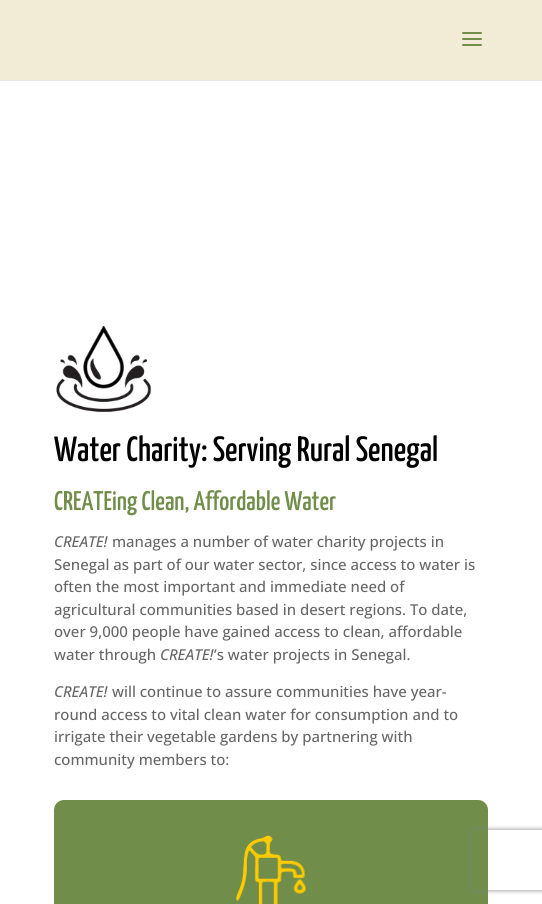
#include <cairo.h>
#include <math.h>
#include <stddef.h>


static void round_rect(cairo_t *cr, double x, double y, double w, double h, double r) {
    cairo_new_sub_path(cr);
    cairo_arc(cr, x + w - r, y + h - r, r, 0, M_PI / 2);
    cairo_arc(cr, x + r, y + h - r, r, M_PI / 2, M_PI);
    cairo_arc(cr, x + r, y + r, r, M_PI, 1.5 * M_PI);
    cairo_arc(cr, x + w - r, y + r, r, 1.5 * M_PI, 2 * M_PI);
    cairo_close_path(cr);
}

static void shadow(cairo_t *cr, double x, double y, double w, double h, double r, double blur, double alpha) {
    cairo_push_group_with_content(cr, CAIRO_CONTENT_ALPHA);
    cairo_set_operator(cr, CAIRO_OPERATOR_SOURCE);
    for (int i = 15; i >= -15 && fmin(w, h) + blur * i / 3 > 0; i -= 2) {
        double e = blur * i / 6;
        cairo_set_source_rgba(cr, 0, 0, 0, alpha * erfc((i - 1) / 8.5) / 2);
        round_rect(cr, x - e, y - e, w + 2 * e, h + 2 * e, fmax(0, fmin(r + e + blur * .6, fmin(w, h) / 2 + e)));
        cairo_fill(cr);
    }
    cairo_pattern_t *soft = cairo_pop_group(cr);
    cairo_mask(cr, soft);
    cairo_pattern_destroy(soft);
}

static void picture(cairo_t *cr, const char *path, double x, double y, double w, double h) {
    cairo_surface_t *image = cairo_image_surface_create_from_png(path);
    cairo_save(cr);
    cairo_set_source_surface(cr, image, x, y);
    cairo_rectangle(cr, x, y, w, h);
    cairo_fill(cr);
    cairo_restore(cr);
    cairo_surface_destroy(image);
}

int main(void) {
    cairo_surface_t *surface = cairo_image_surface_create(CAIRO_FORMAT_RGB24, 542, 904);
    cairo_t *cr = cairo_create(surface);
    cairo_font_options_t *options = cairo_font_options_create();
    cairo_font_options_set_hint_metrics(options, CAIRO_HINT_METRICS_OFF);
    cairo_font_options_set_hint_style(options, CAIRO_HINT_STYLE_NONE);
    cairo_set_font_options(cr, options);
    cairo_set_miter_limit(cr, 4);
    cairo_set_source_rgb(cr, 1, 1, 1);
    cairo_paint(cr);
    cairo_set_source_rgb(cr, 0.902, 0.902, 0.902);
    cairo_rectangle(cr, 0, 80, 542, 1);
    cairo_fill(cr);
    cairo_set_source_rgb(cr, 0.949, 0.925, 0.843);
    cairo_rectangle(cr, 0, 0, 542, 80);
    cairo_fill(cr);
    picture(cr, "img1.png", 462, 32, 20, 14);
    picture(cr, "img2.png", 56, 326, 96, 86);
    cairo_select_font_face(cr, "Yanone Kaffeesatz Medium", CAIRO_FONT_SLANT_NORMAL, CAIRO_FONT_WEIGHT_NORMAL);
    cairo_set_font_size(cr, 35);
    cairo_set_source_rgb(cr, 0, 0, 0);
    cairo_move_to(cr, 54, 461);
    cairo_show_text(cr, "Water Charity: Serving Rural Senegal");
    cairo_set_font_size(cr, 27);
    cairo_set_source_rgb(cr, 0.439, 0.557, 0.29);
    cairo_move_to(cr, 54, 510);
    cairo_show_text(cr, "CREATEing Clean, Affordable Water");
    cairo_select_font_face(cr, "Open Sans Medium", CAIRO_FONT_SLANT_ITALIC, CAIRO_FONT_WEIGHT_NORMAL);
    cairo_set_font_size(cr, 15);
    cairo_set_source_rgb(cr, 0.4, 0.4, 0.4);
    cairo_move_to(cr, 54, 547);
    cairo_show_text(cr, "CREATE!");
    cairo_select_font_face(cr, "Open Sans Medium", CAIRO_FONT_SLANT_NORMAL, CAIRO_FONT_WEIGHT_NORMAL);
    cairo_move_to(cr, 112, 547);
    cairo_show_text(cr, "manages a number of water charity projects in");
    cairo_move_to(cr, 54, 570);
    cairo_show_text(cr, "Senegal as part of our water sector, since access to water is");
    cairo_move_to(cr, 54, 592);
    cairo_show_text(cr, "often the most important and immediate need of");
    cairo_move_to(cr, 54, 615);
    cairo_show_text(cr, "agricultural communities based in desert regions. To date,");
    cairo_move_to(cr, 54, 637);
    cairo_show_text(cr, "over 9,000 people have gained access to clean, affordable");
    cairo_move_to(cr, 54, 660);
    cairo_show_text(cr, "water through");
    cairo_select_font_face(cr, "Open Sans Medium", CAIRO_FONT_SLANT_ITALIC, CAIRO_FONT_WEIGHT_NORMAL);
    cairo_move_to(cr, 160, 660);
    cairo_show_text(cr, "CREATE!");
    cairo_select_font_face(cr, "Open Sans Medium", CAIRO_FONT_SLANT_NORMAL, CAIRO_FONT_WEIGHT_NORMAL);
    cairo_move_to(cr, 214, 660);
    cairo_show_text(cr, "’s water projects in Senegal.");
    cairo_select_font_face(cr, "Open Sans Medium", CAIRO_FONT_SLANT_ITALIC, CAIRO_FONT_WEIGHT_NORMAL);
    cairo_move_to(cr, 54, 697);
    cairo_show_text(cr, "CREATE!");
    cairo_select_font_face(cr, "Open Sans Medium", CAIRO_FONT_SLANT_NORMAL, CAIRO_FONT_WEIGHT_NORMAL);
    cairo_move_to(cr, 112, 697);
    cairo_show_text(cr, "will continue to assure communities have year-");
    cairo_move_to(cr, 54, 720);
    cairo_show_text(cr, "round access to vital clean water for consumption and to");
    cairo_move_to(cr, 54, 742);
    cairo_show_text(cr, "irrigate their vegetable gardens by partnering with");
    cairo_move_to(cr, 54, 765);
    cairo_show_text(cr, "community members to:");
    cairo_set_source_rgb(cr, 0.439, 0.557, 0.29);
    round_rect(cr, 54, 800, 434, 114, 10);
    cairo_fill(cr);
    picture(cr, "img3.png", 236, 835, 70, 69);
    cairo_save(cr);
    cairo_set_fill_rule(cr, CAIRO_FILL_RULE_EVEN_ODD);
    cairo_new_path(cr);
    cairo_move_to(cr, 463, 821);
    cairo_line_to(cr, 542, 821);
    cairo_line_to(cr, 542, 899);
    cairo_line_to(cr, 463, 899);
    cairo_close_path(cr);
    cairo_move_to(cr, 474, 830);
    cairo_line_to(cr, 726, 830);
    cairo_curve_to(cr, 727, 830, 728, 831, 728, 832);
    cairo_line_to(cr, 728, 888);
    cairo_curve_to(cr, 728, 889, 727, 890, 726, 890);
    cairo_line_to(cr, 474, 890);
    cairo_curve_to(cr, 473, 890, 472, 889, 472, 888);
    cairo_line_to(cr, 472, 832);
    cairo_curve_to(cr, 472, 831, 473, 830, 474, 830);
    cairo_close_path(cr);
    cairo_clip(cr);
    cairo_set_source_rgb(cr, 0.502, 0.502, 0.502);
    shadow(cr, 472, 830, 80, 60, 2, 2.5, 1);
    cairo_restore(cr);
    cairo_surface_write_to_png(surface, "page.png");
    cairo_font_options_destroy(options);
    cairo_destroy(cr);
    cairo_surface_destroy(surface);
    return 0;
}
